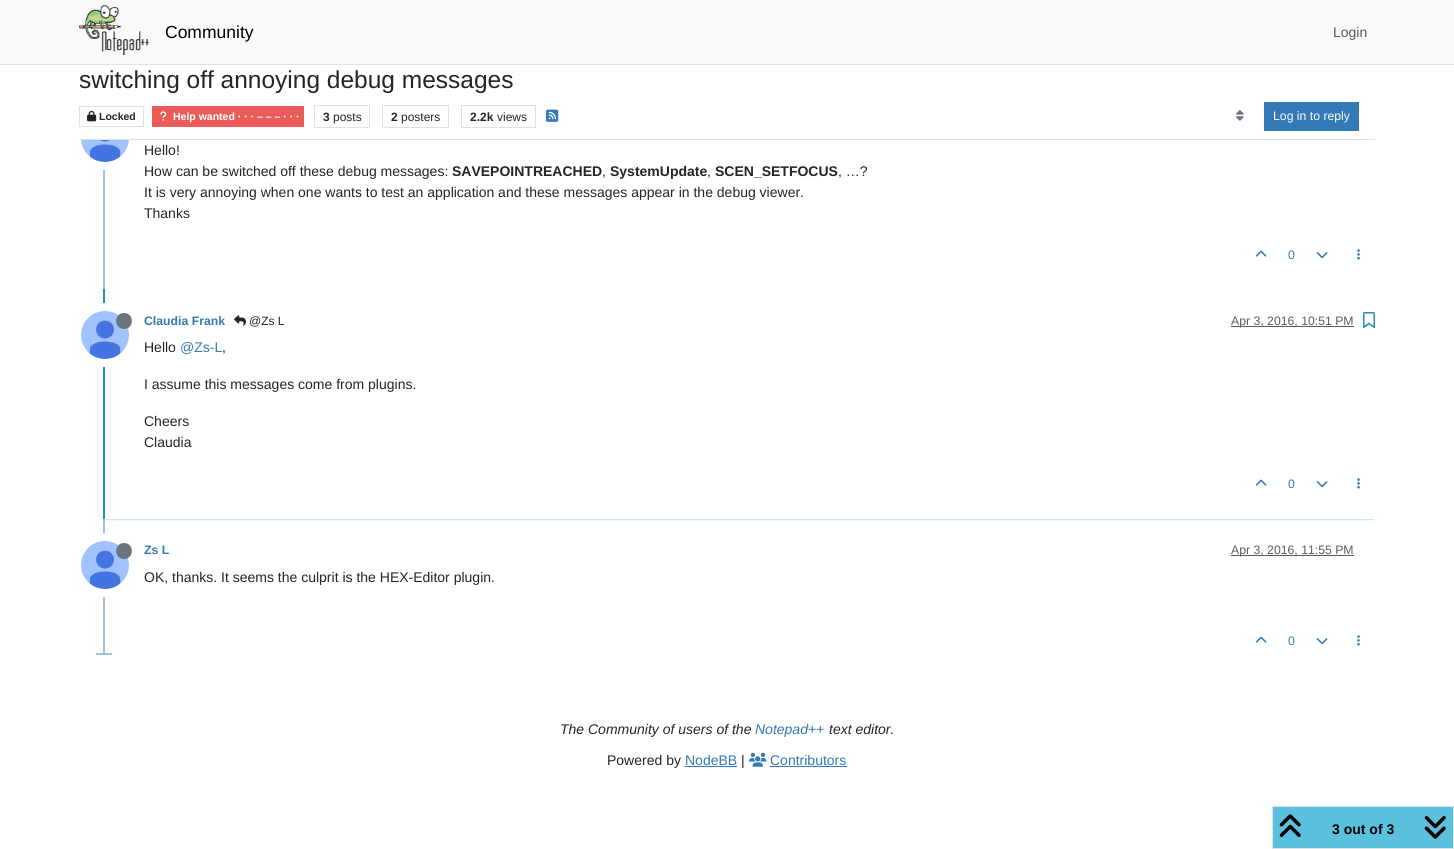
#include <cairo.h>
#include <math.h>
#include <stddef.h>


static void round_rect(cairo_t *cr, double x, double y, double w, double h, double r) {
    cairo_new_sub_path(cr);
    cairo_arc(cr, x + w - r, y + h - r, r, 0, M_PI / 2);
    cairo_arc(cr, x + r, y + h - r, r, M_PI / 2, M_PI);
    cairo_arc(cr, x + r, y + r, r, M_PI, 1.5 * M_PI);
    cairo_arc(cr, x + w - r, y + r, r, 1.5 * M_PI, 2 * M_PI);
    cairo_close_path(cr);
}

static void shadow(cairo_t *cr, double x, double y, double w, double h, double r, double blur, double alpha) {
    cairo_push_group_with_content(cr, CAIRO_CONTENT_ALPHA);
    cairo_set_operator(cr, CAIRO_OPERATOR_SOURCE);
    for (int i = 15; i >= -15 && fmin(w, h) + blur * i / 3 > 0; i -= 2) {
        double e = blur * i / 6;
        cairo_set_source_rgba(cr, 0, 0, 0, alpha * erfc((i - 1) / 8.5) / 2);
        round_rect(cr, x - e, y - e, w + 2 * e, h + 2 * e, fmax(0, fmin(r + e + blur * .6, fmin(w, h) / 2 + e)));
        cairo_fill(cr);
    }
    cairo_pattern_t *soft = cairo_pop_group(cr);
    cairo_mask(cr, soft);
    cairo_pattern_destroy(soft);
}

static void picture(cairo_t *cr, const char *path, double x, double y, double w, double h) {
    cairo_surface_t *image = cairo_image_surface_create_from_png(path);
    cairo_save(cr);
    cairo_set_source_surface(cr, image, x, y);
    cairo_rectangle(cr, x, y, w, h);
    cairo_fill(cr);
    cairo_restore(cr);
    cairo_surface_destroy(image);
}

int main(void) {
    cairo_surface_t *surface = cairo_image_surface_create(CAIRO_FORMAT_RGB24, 1454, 849);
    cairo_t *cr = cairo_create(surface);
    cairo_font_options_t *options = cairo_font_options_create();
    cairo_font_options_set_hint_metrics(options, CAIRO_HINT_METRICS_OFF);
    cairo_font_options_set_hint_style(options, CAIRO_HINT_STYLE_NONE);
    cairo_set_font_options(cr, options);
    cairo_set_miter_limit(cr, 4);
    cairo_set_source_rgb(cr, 1, 1, 1);
    cairo_paint(cr);
    cairo_set_source_rgb(cr, 0.973, 0.976, 0.98);
    cairo_rectangle(cr, 0, 0, 1454, 64);
    cairo_fill(cr);
    cairo_set_source_rgb(cr, 0.871, 0.886, 0.902);
    cairo_rectangle(cr, 0, 64, 1454, 1);
    cairo_fill(cr);
    picture(cr, "img1.png", 79, 5, 70, 50);
    cairo_select_font_face(cr, "Liberation Sans", CAIRO_FONT_SLANT_NORMAL, CAIRO_FONT_WEIGHT_NORMAL);
    cairo_set_font_size(cr, 17.5);
    cairo_set_source_rgb(cr, 0, 0, 0);
    cairo_move_to(cr, 165, 38);
    cairo_show_text(cr, "Community");
    cairo_set_font_size(cr, 14);
    cairo_set_source_rgb(cr, 0.341, 0.341, 0.345);
    cairo_move_to(cr, 1333, 37);
    cairo_show_text(cr, "Login");
    cairo_set_source_rgb(cr, 0.627, 0.769, 0.894);
    cairo_rectangle(cr, 103, 161, 2, 128);
    cairo_fill(cr);
    cairo_arc(cr, 105, 138, 28, 0, 2 * M_PI);
    cairo_set_source_rgb(cr, 1, 1, 1);
    cairo_set_line_width(cr, 8);
    cairo_stroke(cr);
    cairo_set_source_rgb(cr, 0.871, 0.886, 0.902);
    cairo_rectangle(cr, 79, 139, 1296, 1);
    cairo_fill(cr);
    cairo_set_font_size(cr, 24.5);
    cairo_set_source_rgb(cr, 0.129, 0.145, 0.161);
    cairo_move_to(cr, 79, 88);
    cairo_show_text(cr, "switching off annoying debug messages");
    cairo_rectangle(cr, 79.5, 106.5, 64, 20);
    cairo_set_source_rgb(cr, 0.871, 0.886, 0.902);
    cairo_set_line_width(cr, 1);
    cairo_stroke(cr);
    picture(cr, "img2.png", 87, 110, 10, 12);
    cairo_select_font_face(cr, "Liberation Sans", CAIRO_FONT_SLANT_NORMAL, CAIRO_FONT_WEIGHT_BOLD);
    cairo_set_font_size(cr, 10.5);
    cairo_set_source_rgb(cr, 0.129, 0.145, 0.161);
    cairo_move_to(cr, 99, 120);
    cairo_show_text(cr, "Locked");
    cairo_set_source_rgb(cr, 0.914, 0.361, 0.353);
    cairo_rectangle(cr, 152, 106, 152, 21);
    cairo_fill(cr);
    picture(cr, "img3.png", 160, 111, 7, 10);
    cairo_set_source_rgb(cr, 1, 1, 1);
    cairo_move_to(cr, 173, 120);
    cairo_show_text(cr, "Help wanted · · · – – – · · ·");
    cairo_rectangle(cr, 314.5, 105.5, 55, 22);
    cairo_set_source_rgb(cr, 0.871, 0.886, 0.902);
    cairo_stroke(cr);
    cairo_set_font_size(cr, 12);
    cairo_set_source_rgb(cr, 0.129, 0.145, 0.161);
    cairo_move_to(cr, 323, 121);
    cairo_show_text(cr, "3");
    cairo_select_font_face(cr, "Liberation Sans", CAIRO_FONT_SLANT_NORMAL, CAIRO_FONT_WEIGHT_NORMAL);
    cairo_move_to(cr, 333, 121);
    cairo_show_text(cr, "posts");
    cairo_rectangle(cr, 382.5, 105.5, 66, 22);
    cairo_set_source_rgb(cr, 0.871, 0.886, 0.902);
    cairo_stroke(cr);
    cairo_select_font_face(cr, "Liberation Sans", CAIRO_FONT_SLANT_NORMAL, CAIRO_FONT_WEIGHT_BOLD);
    cairo_set_source_rgb(cr, 0.129, 0.145, 0.161);
    cairo_move_to(cr, 391, 121);
    cairo_show_text(cr, "2");
    cairo_select_font_face(cr, "Liberation Sans", CAIRO_FONT_SLANT_NORMAL, CAIRO_FONT_WEIGHT_NORMAL);
    cairo_move_to(cr, 401, 121);
    cairo_show_text(cr, "posters");
    cairo_rectangle(cr, 461.5, 105.5, 74, 22);
    cairo_set_source_rgb(cr, 0.871, 0.886, 0.902);
    cairo_stroke(cr);
    cairo_select_font_face(cr, "Liberation Sans", CAIRO_FONT_SLANT_NORMAL, CAIRO_FONT_WEIGHT_BOLD);
    cairo_set_source_rgb(cr, 0.129, 0.145, 0.161);
    cairo_move_to(cr, 470, 121);
    cairo_show_text(cr, "2.2k");
    cairo_select_font_face(cr, "Liberation Sans", CAIRO_FONT_SLANT_NORMAL, CAIRO_FONT_WEIGHT_NORMAL);
    cairo_move_to(cr, 497, 121);
    cairo_show_text(cr, "views");
    picture(cr, "img4.png", 546, 109, 13, 13);
    picture(cr, "img5.png", 1236, 110, 8, 11);
    cairo_set_source_rgb(cr, 0.2, 0.478, 0.718);
    cairo_rectangle(cr, 1264, 102, 95, 29);
    cairo_fill(cr);
    cairo_set_font_size(cr, 12.25);
    cairo_set_source_rgb(cr, 1, 1, 1);
    cairo_move_to(cr, 1273, 120);
    cairo_show_text(cr, "Log in to reply");
    picture(cr, "img6.png", 81, 140, 48, 22);
    cairo_set_font_size(cr, 14);
    cairo_set_source_rgb(cr, 0.129, 0.145, 0.161);
    cairo_move_to(cr, 144, 155);
    cairo_show_text(cr, "Hello!");
    cairo_move_to(cr, 144, 176);
    cairo_show_text(cr, "How can be switched off these debug messages:");
    cairo_select_font_face(cr, "Liberation Sans", CAIRO_FONT_SLANT_NORMAL, CAIRO_FONT_WEIGHT_BOLD);
    cairo_move_to(cr, 452, 176);
    cairo_show_text(cr, "SAVEPOINTREACHED");
    cairo_select_font_face(cr, "Liberation Sans", CAIRO_FONT_SLANT_NORMAL, CAIRO_FONT_WEIGHT_NORMAL);
    cairo_move_to(cr, 602, 176);
    cairo_show_text(cr, ",");
    cairo_select_font_face(cr, "Liberation Sans", CAIRO_FONT_SLANT_NORMAL, CAIRO_FONT_WEIGHT_BOLD);
    cairo_move_to(cr, 610, 176);
    cairo_show_text(cr, "SystemUpdate");
    cairo_select_font_face(cr, "Liberation Sans", CAIRO_FONT_SLANT_NORMAL, CAIRO_FONT_WEIGHT_NORMAL);
    cairo_move_to(cr, 707, 176);
    cairo_show_text(cr, ",");
    cairo_select_font_face(cr, "Liberation Sans", CAIRO_FONT_SLANT_NORMAL, CAIRO_FONT_WEIGHT_BOLD);
    cairo_move_to(cr, 715, 176);
    cairo_show_text(cr, "SCEN_SETFOCUS");
    cairo_select_font_face(cr, "Liberation Sans", CAIRO_FONT_SLANT_NORMAL, CAIRO_FONT_WEIGHT_NORMAL);
    cairo_move_to(cr, 838, 176);
    cairo_show_text(cr, ", …?");
    cairo_move_to(cr, 144, 197);
    cairo_show_text(cr, "It is very annoying when one wants to test an application and these messages appear in the debug viewer.");
    cairo_move_to(cr, 144, 218);
    cairo_show_text(cr, "Thanks");
    picture(cr, "img7.png", 1255, 250, 12, 7);
    cairo_set_font_size(cr, 12.25);
    cairo_set_source_rgb(cr, 0.2, 0.478, 0.718);
    cairo_move_to(cr, 1288, 259);
    cairo_show_text(cr, "0");
    picture(cr, "img8.png", 1316, 252, 12, 7);
    picture(cr, "img9.png", 1357, 249, 3, 11);
    cairo_save(cr);
    cairo_rectangle(cr, 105, 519, 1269, 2);
    cairo_clip(cr);
    cairo_set_source_rgb(cr, 0.357, 0.753, 0.871);
    shadow(cr, 105, 293, 1268, 226, 0, 1, 1);
    cairo_restore(cr);
    cairo_set_source_rgb(cr, 0.137, 0.565, 0.69);
    cairo_rectangle(cr, 103, 289, 2, 230);
    cairo_fill(cr);
    cairo_arc(cr, 105, 335, 28, 0, 2 * M_PI);
    cairo_set_source_rgb(cr, 1, 1, 1);
    cairo_set_line_width(cr, 8);
    cairo_stroke(cr);
    picture(cr, "img10.png", 81, 311, 48, 48);
    cairo_set_source_rgb(cr, 0.424, 0.459, 0.49);
    cairo_new_path(cr);
    cairo_move_to(cr, 124, 329);
    cairo_curve_to(cr, 134.5, 329, 134.5, 313, 124, 313);
    cairo_curve_to(cr, 113.5, 313, 113.5, 329, 124, 329);
    cairo_close_path(cr);
    cairo_fill(cr);
    cairo_select_font_face(cr, "Liberation Sans", CAIRO_FONT_SLANT_NORMAL, CAIRO_FONT_WEIGHT_BOLD);
    cairo_set_source_rgb(cr, 0.2, 0.478, 0.718);
    cairo_move_to(cr, 144, 325);
    cairo_show_text(cr, "Claudia Frank");
    picture(cr, "img11.png", 234, 315, 12, 11);
    cairo_select_font_face(cr, "Liberation Sans", CAIRO_FONT_SLANT_NORMAL, CAIRO_FONT_WEIGHT_NORMAL);
    cairo_set_font_size(cr, 12);
    cairo_set_source_rgb(cr, 0.129, 0.145, 0.161);
    cairo_move_to(cr, 249, 325);
    cairo_show_text(cr, "@Zs L");
    cairo_set_source_rgb(cr, 0.349, 0.361, 0.373);
    cairo_rectangle(cr, 1231, 326, 123, 1);
    cairo_fill(cr);
    cairo_set_font_size(cr, 12.25);
    cairo_set_source_rgb(cr, 0.345, 0.357, 0.369);
    cairo_move_to(cr, 1231, 325);
    cairo_show_text(cr, "Apr 3, 2016, 10:51 PM");
    picture(cr, "img12.png", 1363, 312, 12, 16);
    cairo_set_font_size(cr, 14);
    cairo_set_source_rgb(cr, 0.129, 0.145, 0.161);
    cairo_move_to(cr, 144, 352);
    cairo_show_text(cr, "Hello");
    cairo_set_source_rgb(cr, 0.2, 0.478, 0.718);
    cairo_move_to(cr, 180, 352);
    cairo_show_text(cr, "@Zs-L");
    cairo_set_source_rgb(cr, 0.129, 0.145, 0.161);
    cairo_move_to(cr, 222, 352);
    cairo_show_text(cr, ",");
    cairo_move_to(cr, 144, 389);
    cairo_show_text(cr, "I assume this messages come from plugins.");
    cairo_move_to(cr, 144, 426);
    cairo_show_text(cr, "Cheers");
    cairo_move_to(cr, 144, 447);
    cairo_show_text(cr, "Claudia");
    picture(cr, "img7.png", 1255, 479, 12, 7);
    cairo_set_font_size(cr, 12.25);
    cairo_set_source_rgb(cr, 0.2, 0.478, 0.718);
    cairo_move_to(cr, 1288, 488);
    cairo_show_text(cr, "0");
    picture(cr, "img8.png", 1316, 481, 12, 7);
    picture(cr, "img9.png", 1357, 478, 3, 11);
    cairo_set_source_rgb(cr, 0.627, 0.769, 0.894);
    cairo_rectangle(cr, 103, 519, 2, 136);
    cairo_fill(cr);
    cairo_arc(cr, 105, 565, 28, 0, 2 * M_PI);
    cairo_set_source_rgb(cr, 1, 1, 1);
    cairo_stroke(cr);
    picture(cr, "img13.png", 81, 541, 48, 48);
    cairo_set_source_rgb(cr, 0.424, 0.459, 0.49);
    cairo_new_path(cr);
    cairo_move_to(cr, 124, 559);
    cairo_curve_to(cr, 134.5, 559, 134.5, 543, 124, 543);
    cairo_curve_to(cr, 113.5, 543, 113.5, 559, 124, 559);
    cairo_close_path(cr);
    cairo_fill(cr);
    cairo_select_font_face(cr, "Liberation Sans", CAIRO_FONT_SLANT_NORMAL, CAIRO_FONT_WEIGHT_BOLD);
    cairo_set_source_rgb(cr, 0.2, 0.478, 0.718);
    cairo_move_to(cr, 144, 554);
    cairo_show_text(cr, "Zs L");
    cairo_set_source_rgb(cr, 0.349, 0.361, 0.373);
    cairo_rectangle(cr, 1231, 555, 123, 1);
    cairo_fill(cr);
    cairo_select_font_face(cr, "Liberation Sans", CAIRO_FONT_SLANT_NORMAL, CAIRO_FONT_WEIGHT_NORMAL);
    cairo_set_source_rgb(cr, 0.345, 0.357, 0.369);
    cairo_move_to(cr, 1231, 554);
    cairo_show_text(cr, "Apr 3, 2016, 11:55 PM");
    cairo_set_font_size(cr, 14);
    cairo_set_source_rgb(cr, 0.129, 0.145, 0.161);
    cairo_move_to(cr, 144, 582);
    cairo_show_text(cr, "OK, thanks. It seems the culprit is the HEX-Editor plugin.");
    picture(cr, "img7.png", 1255, 636, 12, 7);
    cairo_set_font_size(cr, 12.25);
    cairo_set_source_rgb(cr, 0.2, 0.478, 0.718);
    cairo_move_to(cr, 1288, 645);
    cairo_show_text(cr, "0");
    picture(cr, "img8.png", 1316, 638, 12, 7);
    picture(cr, "img9.png", 1357, 635, 3, 11);
    cairo_set_source_rgb(cr, 0.627, 0.769, 0.894);
    cairo_rectangle(cr, 96, 653, 16, 2);
    cairo_fill(cr);
    cairo_rectangle(cr, 1272.5, 806.5, 181, 42);
    cairo_set_source_rgb(cr, 0.871, 0.886, 0.902);
    cairo_set_line_width(cr, 1);
    cairo_stroke(cr);
    cairo_set_source_rgb(cr, 0.357, 0.753, 0.871);
    cairo_rectangle(cr, 1273, 807, 180, 41);
    cairo_fill(cr);
    picture(cr, "img14.png", 1279, 814, 22, 23);
    cairo_select_font_face(cr, "Liberation Sans", CAIRO_FONT_SLANT_NORMAL, CAIRO_FONT_WEIGHT_BOLD);
    cairo_set_font_size(cr, 14);
    cairo_set_source_rgb(cr, 0, 0, 0);
    cairo_move_to(cr, 1332, 834);
    cairo_show_text(cr, "3 out of 3");
    picture(cr, "img15.png", 1424, 816, 22, 23);
    cairo_select_font_face(cr, "Liberation Sans", CAIRO_FONT_SLANT_ITALIC, CAIRO_FONT_WEIGHT_NORMAL);
    cairo_set_source_rgb(cr, 0.129, 0.145, 0.161);
    cairo_move_to(cr, 560, 734);
    cairo_show_text(cr, "The Community of users of the");
    cairo_set_source_rgb(cr, 0.2, 0.478, 0.718);
    cairo_move_to(cr, 755, 734);
    cairo_show_text(cr, "Notepad++");
    cairo_set_source_rgb(cr, 0.129, 0.145, 0.161);
    cairo_move_to(cr, 829, 734);
    cairo_show_text(cr, "text editor.");
    cairo_select_font_face(cr, "Liberation Sans", CAIRO_FONT_SLANT_NORMAL, CAIRO_FONT_WEIGHT_NORMAL);
    cairo_move_to(cr, 607, 765);
    cairo_show_text(cr, "Powered by");
    cairo_set_source_rgb(cr, 0.2, 0.478, 0.718);
    cairo_move_to(cr, 685, 765);
    cairo_show_text(cr, "NodeBB");
    cairo_rectangle(cr, 685, 766, 52, 1);
    cairo_fill(cr);
    cairo_set_source_rgb(cr, 0.129, 0.145, 0.161);
    cairo_move_to(cr, 741, 765);
    cairo_show_text(cr, "|");
    picture(cr, "img16.png", 749, 752, 18, 15);
    cairo_set_source_rgb(cr, 0.2, 0.478, 0.718);
    cairo_move_to(cr, 770, 765);
    cairo_show_text(cr, "Contributors");
    cairo_rectangle(cr, 770, 766, 77, 1);
    cairo_fill(cr);
    cairo_surface_write_to_png(surface, "page.png");
    cairo_font_options_destroy(options);
    cairo_destroy(cr);
    cairo_surface_destroy(surface);
    return 0;
}
